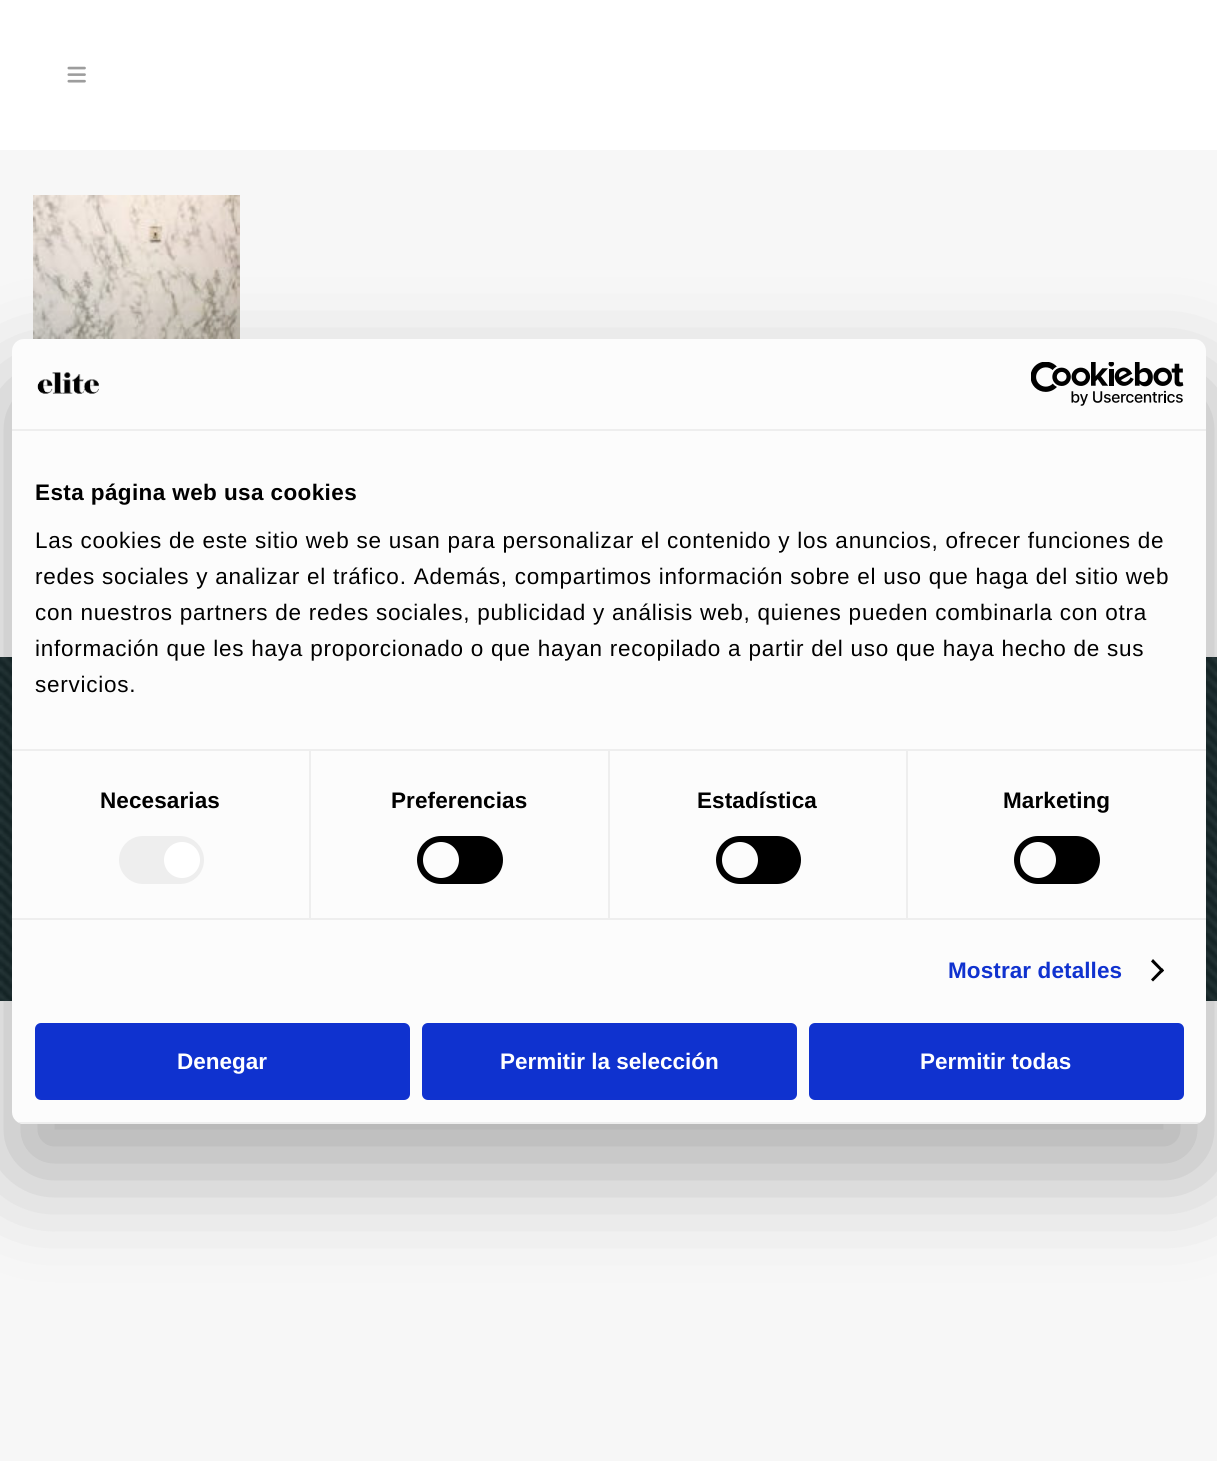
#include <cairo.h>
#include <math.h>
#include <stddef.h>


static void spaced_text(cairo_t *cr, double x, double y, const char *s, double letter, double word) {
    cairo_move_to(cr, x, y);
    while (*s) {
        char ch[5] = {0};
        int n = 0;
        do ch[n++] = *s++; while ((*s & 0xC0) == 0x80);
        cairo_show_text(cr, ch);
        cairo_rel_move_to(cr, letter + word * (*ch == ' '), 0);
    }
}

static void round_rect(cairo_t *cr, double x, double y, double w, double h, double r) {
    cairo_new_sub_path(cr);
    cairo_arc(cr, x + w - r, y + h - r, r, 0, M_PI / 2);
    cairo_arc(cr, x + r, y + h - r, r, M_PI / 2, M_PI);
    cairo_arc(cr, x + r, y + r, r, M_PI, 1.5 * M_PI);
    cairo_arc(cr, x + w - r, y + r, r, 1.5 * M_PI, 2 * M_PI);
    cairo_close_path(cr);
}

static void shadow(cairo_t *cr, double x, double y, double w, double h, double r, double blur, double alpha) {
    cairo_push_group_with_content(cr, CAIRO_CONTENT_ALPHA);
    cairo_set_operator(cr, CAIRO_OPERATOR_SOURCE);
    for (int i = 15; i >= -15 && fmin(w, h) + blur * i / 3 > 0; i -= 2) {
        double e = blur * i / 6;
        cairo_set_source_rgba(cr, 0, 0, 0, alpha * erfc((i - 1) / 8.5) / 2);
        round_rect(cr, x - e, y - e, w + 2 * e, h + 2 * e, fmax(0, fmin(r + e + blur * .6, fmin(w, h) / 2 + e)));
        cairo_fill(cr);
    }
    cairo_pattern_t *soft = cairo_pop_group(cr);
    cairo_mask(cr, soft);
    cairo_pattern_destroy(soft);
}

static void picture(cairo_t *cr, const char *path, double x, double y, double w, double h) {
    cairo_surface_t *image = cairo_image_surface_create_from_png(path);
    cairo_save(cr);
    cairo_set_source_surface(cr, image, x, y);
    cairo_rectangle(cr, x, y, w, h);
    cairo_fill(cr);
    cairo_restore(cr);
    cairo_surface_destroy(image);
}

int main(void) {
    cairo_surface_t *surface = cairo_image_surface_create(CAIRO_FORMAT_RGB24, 1217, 1461);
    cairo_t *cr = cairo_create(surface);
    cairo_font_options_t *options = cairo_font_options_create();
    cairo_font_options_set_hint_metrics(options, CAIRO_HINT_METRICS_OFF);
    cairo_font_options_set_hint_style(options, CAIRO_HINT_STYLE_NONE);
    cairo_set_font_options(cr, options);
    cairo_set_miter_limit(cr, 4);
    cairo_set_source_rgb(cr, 0.965, 0.965, 0.965);
    cairo_paint(cr);
    cairo_set_source_rgb(cr, 1, 1, 1);
    cairo_rectangle(cr, 0, 0, 1217, 150);
    cairo_fill(cr);
    picture(cr, "img1.png", 67, 66, 19, 17);
    picture(cr, "img2.png", 33, 195, 207, 144);
    picture(cr, "img3.png", 0, 657, 1217, 344);
    cairo_set_source_rgb(cr, 0, 0, 0);
    shadow(cr, 12, 387, 1194, 785, 12, 51, 0.3);
    cairo_set_source_rgb(cr, 0.988, 0.988, 0.988);
    round_rect(cr, 12, 339, 1194, 785, 12);
    cairo_fill(cr);
    cairo_set_source_rgb(cr, 0.933, 0.933, 0.933);
    cairo_rectangle(cr, 12, 429, 1194, 2);
    cairo_fill(cr);
    picture(cr, "img4.png", 37, 372, 62, 22);
    picture(cr, "img5.png", 1031, 362, 153, 44);
    cairo_rectangle(cr, 309, 750, 2, 168);
    cairo_fill(cr);
    cairo_rectangle(cr, 608, 750, 2, 168);
    cairo_fill(cr);
    cairo_rectangle(cr, 906, 750, 2, 168);
    cairo_fill(cr);
    cairo_rectangle(cr, 12, 749, 1194, 2);
    cairo_fill(cr);
    cairo_select_font_face(cr, "Liberation Sans", CAIRO_FONT_SLANT_NORMAL, CAIRO_FONT_WEIGHT_BOLD);
    cairo_set_font_size(cr, 22.5);
    cairo_set_source_rgb(cr, 0, 0, 0);
    spaced_text(cr, 35, 500, "Esta página web usa cookies", 0.4, 0);
    cairo_select_font_face(cr, "Liberation Sans", CAIRO_FONT_SLANT_NORMAL, CAIRO_FONT_WEIGHT_NORMAL);
    spaced_text(cr, 35, 548, "Las cookies de este sitio web se usan para personalizar el contenido y los anuncios, ofrecer funciones de", 0.75, 0);
    spaced_text(cr, 35, 584, "redes sociales y analizar el tráfico. Además, compartimos información sobre el uso que haga del sitio web", 0.75, 0);
    spaced_text(cr, 35, 620, "con nuestros partners de redes sociales, publicidad y análisis web, quienes pueden combinarla con otra", 0.75, 0);
    spaced_text(cr, 35, 656, "información que les haya proporcionado o que hayan recopilado a partir del uso que haya hecho de sus", 0.75, 0);
    spaced_text(cr, 35, 692, "servicios.", 0.75, 0);
    cairo_set_source_rgb(cr, 0.933, 0.933, 0.933);
    cairo_rectangle(cr, 12, 918, 1194, 2);
    cairo_fill(cr);
    cairo_select_font_face(cr, "Liberation Sans", CAIRO_FONT_SLANT_NORMAL, CAIRO_FONT_WEIGHT_BOLD);
    cairo_set_source_rgb(cr, 0, 0, 0);
    spaced_text(cr, 100, 808, "Necesarias", 0.1, 0);
    cairo_set_source_rgb(cr, 0.933, 0.933, 0.933);
    round_rect(cr, 119, 836, 85, 48, 24);
    cairo_fill(cr);
    cairo_set_source_rgb(cr, 1, 1, 1);
    cairo_arc(cr, 182, 860, 18, 0, 2 * M_PI);
    cairo_fill(cr);
    cairo_set_source_rgb(cr, 0, 0, 0);
    spaced_text(cr, 391, 808, "Preferencias", 0.1, 0);
    round_rect(cr, 417, 836, 86, 48, 24);
    cairo_fill(cr);
    cairo_set_source_rgb(cr, 0.988, 0.988, 0.988);
    cairo_arc(cr, 441, 860, 18, 0, 2 * M_PI);
    cairo_fill(cr);
    cairo_set_source_rgb(cr, 0, 0, 0);
    spaced_text(cr, 697, 808, "Estadística", 0.1, 0);
    round_rect(cr, 716, 836, 85, 48, 24);
    cairo_fill(cr);
    cairo_set_source_rgb(cr, 0.988, 0.988, 0.988);
    cairo_arc(cr, 740, 860, 18, 0, 2 * M_PI);
    cairo_fill(cr);
    cairo_set_source_rgb(cr, 0, 0, 0);
    spaced_text(cr, 1003, 808, "Marketing", 0.1, 0);
    round_rect(cr, 1014, 836, 86, 48, 24);
    cairo_fill(cr);
    cairo_set_source_rgb(cr, 0.988, 0.988, 0.988);
    cairo_arc(cr, 1038, 860, 18, 0, 2 * M_PI);
    cairo_fill(cr);
    cairo_set_source_rgb(cr, 0.063, 0.196, 0.812);
    spaced_text(cr, 948, 978, "Mostrar detalles", 0.1, 0);
    cairo_set_source_rgb(cr, 0, 0, 0);
    cairo_new_path(cr);
    cairo_move_to(cr, 1153, 959);
    cairo_line_to(cr, 1164, 970.5);
    cairo_line_to(cr, 1162, 972.5);
    cairo_line_to(cr, 1151, 961.5);
    cairo_close_path(cr);
    cairo_fill(cr);
    cairo_new_path(cr);
    cairo_move_to(cr, 1162, 968);
    cairo_line_to(cr, 1164, 970.5);
    cairo_line_to(cr, 1153, 981.5);
    cairo_line_to(cr, 1151, 979.5);
    cairo_close_path(cr);
    cairo_fill(cr);
    cairo_save(cr);
    round_rect(cr, 12, 339, 1194, 785, 12);
    cairo_clip(cr);
    cairo_set_source_rgb(cr, 0.933, 0.933, 0.933);
    cairo_rectangle(cr, 12, 1122, 1194, 2);
    cairo_fill(cr);
    cairo_restore(cr);
    cairo_set_source_rgb(cr, 0.059, 0.196, 0.812);
    round_rect(cr, 36.5, 1024.5, 372, 74, 4.5);
    cairo_fill_preserve(cr);
    cairo_set_source_rgb(cr, 0.063, 0.196, 0.812);
    cairo_set_line_width(cr, 3);
    cairo_stroke(cr);
    cairo_set_source_rgb(cr, 1, 1, 1);
    cairo_move_to(cr, 177, 1069);
    cairo_show_text(cr, "Denegar");
    cairo_set_source_rgb(cr, 0.059, 0.196, 0.812);
    round_rect(cr, 423.5, 1024.5, 372, 74, 4.5);
    cairo_fill_preserve(cr);
    cairo_set_source_rgb(cr, 0.063, 0.196, 0.812);
    cairo_stroke(cr);
    cairo_set_source_rgb(cr, 1, 1, 1);
    cairo_move_to(cr, 500, 1069);
    cairo_show_text(cr, "Permitir la selección");
    cairo_set_source_rgb(cr, 0.063, 0.196, 0.812);
    round_rect(cr, 810.5, 1024.5, 372, 74, 4.5);
    cairo_fill_preserve(cr);
    cairo_stroke(cr);
    cairo_set_source_rgb(cr, 1, 1, 1);
    cairo_move_to(cr, 920, 1069);
    cairo_show_text(cr, "Permitir todas");
    cairo_surface_write_to_png(surface, "page.png");
    cairo_font_options_destroy(options);
    cairo_destroy(cr);
    cairo_surface_destroy(surface);
    return 0;
}
